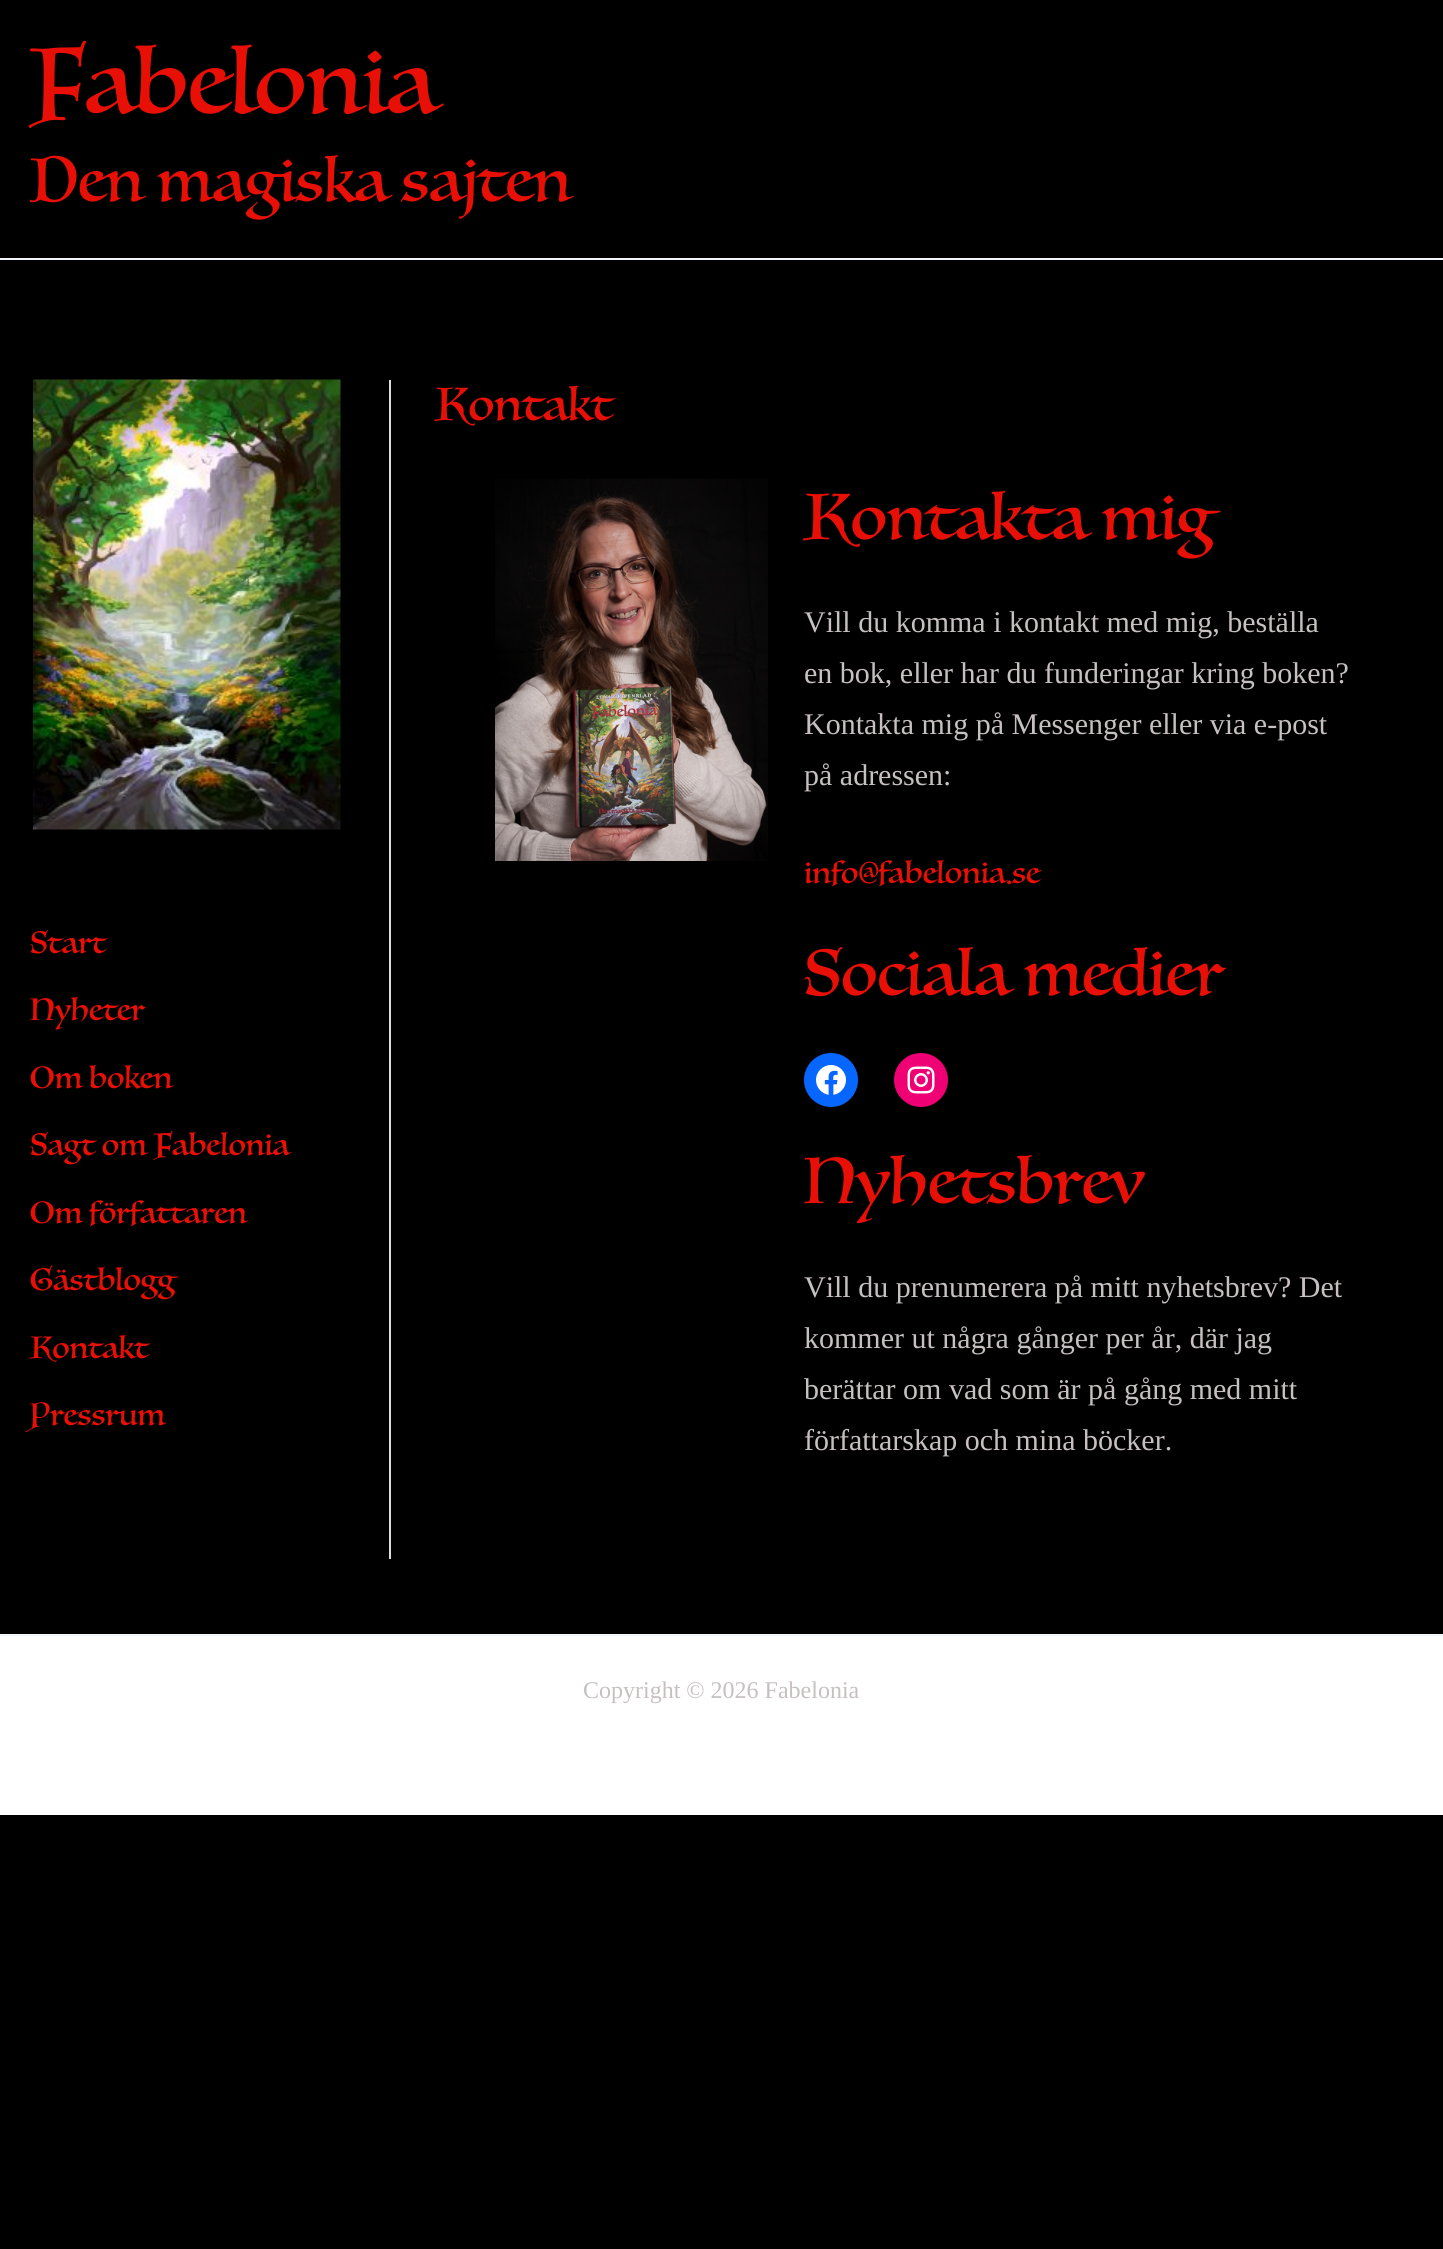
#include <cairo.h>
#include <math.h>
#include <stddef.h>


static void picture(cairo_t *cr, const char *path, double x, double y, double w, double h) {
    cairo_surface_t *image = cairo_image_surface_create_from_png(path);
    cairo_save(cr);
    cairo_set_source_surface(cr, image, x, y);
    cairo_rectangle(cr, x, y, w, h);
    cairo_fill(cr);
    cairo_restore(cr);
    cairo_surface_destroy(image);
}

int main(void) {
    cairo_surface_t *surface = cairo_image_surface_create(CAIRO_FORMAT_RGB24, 1443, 2249);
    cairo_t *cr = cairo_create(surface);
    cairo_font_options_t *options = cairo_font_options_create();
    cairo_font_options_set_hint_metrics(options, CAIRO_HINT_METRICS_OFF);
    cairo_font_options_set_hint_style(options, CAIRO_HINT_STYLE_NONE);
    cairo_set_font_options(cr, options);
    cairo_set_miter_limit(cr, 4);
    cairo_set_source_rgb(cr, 0, 0, 0);
    cairo_paint(cr);
    cairo_set_source_rgb(cr, 0.949, 0.961, 0.969);
    cairo_rectangle(cr, 0, 258, 1443, 2);
    cairo_fill(cr);
    cairo_select_font_face(cr, "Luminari", CAIRO_FONT_SLANT_NORMAL, CAIRO_FONT_WEIGHT_NORMAL);
    cairo_set_font_size(cr, 90);
    cairo_set_source_rgb(cr, 0.91, 0.059, 0.027);
    cairo_move_to(cr, 30, 113);
    cairo_show_text(cr, "Fabelonia");
    cairo_set_font_size(cr, 60);
    cairo_move_to(cr, 30, 201);
    cairo_show_text(cr, "Den magiska sajten");
    cairo_set_source_rgb(cr, 0.867, 0.867, 0.867);
    cairo_rectangle(cr, 389, 380, 2, 1179);
    cairo_fill(cr);
    picture(cr, "img1.png", 33, 379, 308, 451);
    cairo_set_font_size(cr, 30);
    cairo_set_source_rgb(cr, 0.91, 0.059, 0.027);
    cairo_move_to(cr, 30, 953);
    cairo_show_text(cr, "Start");
    cairo_move_to(cr, 30, 1020);
    cairo_show_text(cr, "Nyheter");
    cairo_move_to(cr, 30, 1088);
    cairo_show_text(cr, "Om boken");
    cairo_move_to(cr, 30, 1155);
    cairo_show_text(cr, "Sagt om Fabelonia");
    cairo_move_to(cr, 30, 1223);
    cairo_show_text(cr, "Om författaren");
    cairo_move_to(cr, 30, 1290);
    cairo_show_text(cr, "Gästblogg");
    cairo_move_to(cr, 30, 1358);
    cairo_show_text(cr, "Kontakt");
    cairo_move_to(cr, 30, 1425);
    cairo_show_text(cr, "Pressrum");
    cairo_set_font_size(cr, 45);
    cairo_move_to(cr, 435, 420);
    cairo_show_text(cr, "Kontakt");
    picture(cr, "img2.png", 495, 478, 273, 383);
    cairo_set_font_size(cr, 63);
    cairo_move_to(cr, 804, 539);
    cairo_show_text(cr, "Kontakta mig");
    cairo_select_font_face(cr, "Liberation Serif", CAIRO_FONT_SLANT_NORMAL, CAIRO_FONT_WEIGHT_NORMAL);
    cairo_set_font_size(cr, 30);
    cairo_set_source_rgb(cr, 0.776, 0.753, 0.753);
    cairo_move_to(cr, 804, 632);
    cairo_show_text(cr, "Vill du komma i kontakt med mig, beställa");
    cairo_move_to(cr, 804, 683);
    cairo_show_text(cr, "en bok, eller har du funderingar kring boken?");
    cairo_move_to(cr, 804, 734);
    cairo_show_text(cr, "Kontakta mig på Messenger eller via e-post");
    cairo_move_to(cr, 804, 785);
    cairo_show_text(cr, "på adressen:");
    cairo_select_font_face(cr, "Luminari", CAIRO_FONT_SLANT_NORMAL, CAIRO_FONT_WEIGHT_NORMAL);
    cairo_set_source_rgb(cr, 0.91, 0.059, 0.027);
    cairo_move_to(cr, 804, 883);
    cairo_show_text(cr, "info@fabelonia.se");
    cairo_set_font_size(cr, 63);
    cairo_move_to(cr, 804, 995);
    cairo_show_text(cr, "Sociala medier");
    cairo_set_source_rgb(cr, 0.031, 0.4, 1);
    cairo_new_path(cr);
    cairo_arc(cr, 831, 1080, 27, 0, 2 * M_PI);
    cairo_fill(cr);
    picture(cr, "img3.png", 816, 1065, 30, 30);
    cairo_set_source_rgb(cr, 0.941, 0, 0.459);
    cairo_arc(cr, 921, 1080, 27, 0, 2 * M_PI);
    cairo_fill(cr);
    picture(cr, "img4.png", 907, 1066, 28, 28);
    cairo_set_source_rgb(cr, 0.91, 0.059, 0.027);
    cairo_move_to(cr, 804, 1203);
    cairo_show_text(cr, "Nyhetsbrev");
    cairo_select_font_face(cr, "Liberation Serif", CAIRO_FONT_SLANT_NORMAL, CAIRO_FONT_WEIGHT_NORMAL);
    cairo_set_font_size(cr, 30);
    cairo_set_source_rgb(cr, 0.776, 0.753, 0.753);
    cairo_move_to(cr, 804, 1297);
    cairo_show_text(cr, "Vill du prenumerera på mitt nyhetsbrev? Det");
    cairo_move_to(cr, 804, 1348);
    cairo_show_text(cr, "kommer ut några gånger per år, där jag");
    cairo_move_to(cr, 804, 1399);
    cairo_show_text(cr, "berättar om vad som är på gång med mitt");
    cairo_move_to(cr, 804, 1450);
    cairo_show_text(cr, "författarskap och mina böcker.");
    cairo_set_source_rgb(cr, 1, 1, 1);
    cairo_rectangle(cr, 0, 1636, 1443, 179);
    cairo_fill(cr);
    cairo_set_source_rgb(cr, 0.949, 0.961, 0.969);
    cairo_rectangle(cr, 0, 1634, 1443, 2);
    cairo_fill(cr);
    cairo_set_font_size(cr, 24);
    cairo_set_source_rgb(cr, 0.776, 0.753, 0.753);
    cairo_move_to(cr, 583, 1698);
    cairo_show_text(cr, "Copyright © 2026 Fabelonia");
    cairo_surface_write_to_png(surface, "page.png");
    cairo_font_options_destroy(options);
    cairo_destroy(cr);
    cairo_surface_destroy(surface);
    return 0;
}
